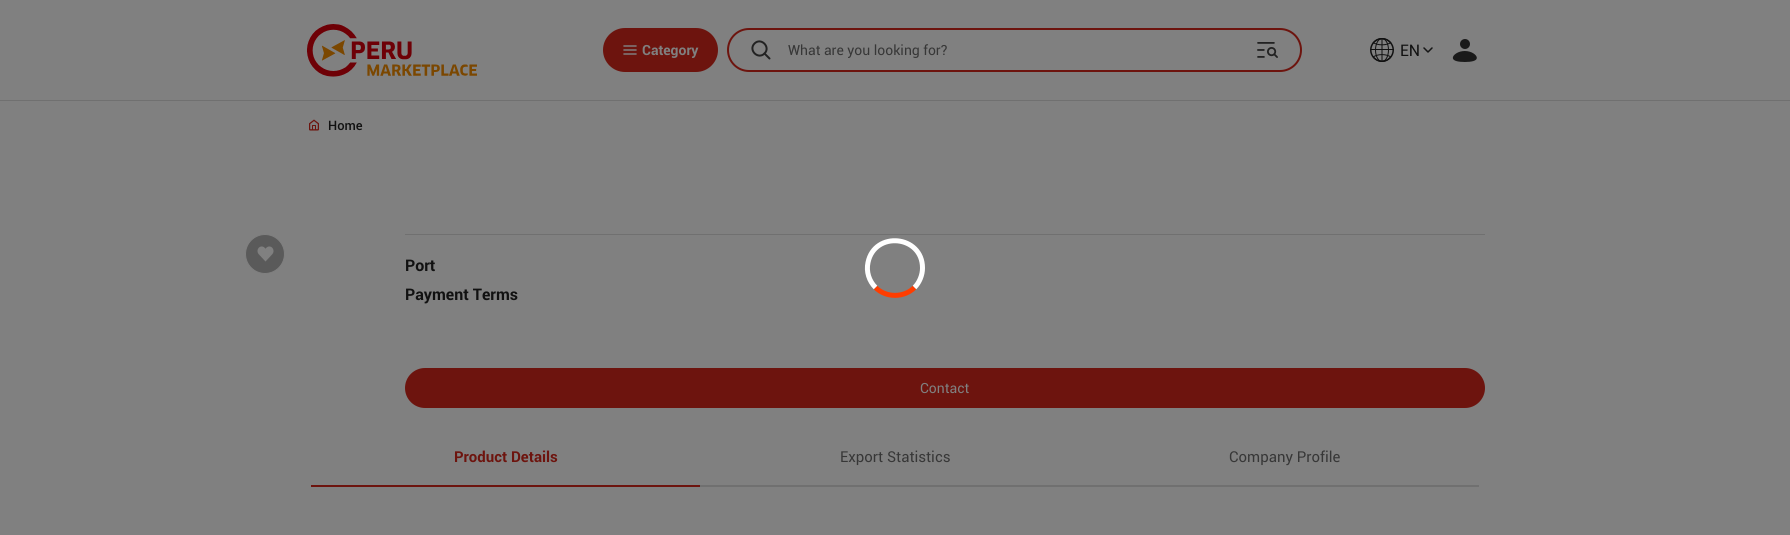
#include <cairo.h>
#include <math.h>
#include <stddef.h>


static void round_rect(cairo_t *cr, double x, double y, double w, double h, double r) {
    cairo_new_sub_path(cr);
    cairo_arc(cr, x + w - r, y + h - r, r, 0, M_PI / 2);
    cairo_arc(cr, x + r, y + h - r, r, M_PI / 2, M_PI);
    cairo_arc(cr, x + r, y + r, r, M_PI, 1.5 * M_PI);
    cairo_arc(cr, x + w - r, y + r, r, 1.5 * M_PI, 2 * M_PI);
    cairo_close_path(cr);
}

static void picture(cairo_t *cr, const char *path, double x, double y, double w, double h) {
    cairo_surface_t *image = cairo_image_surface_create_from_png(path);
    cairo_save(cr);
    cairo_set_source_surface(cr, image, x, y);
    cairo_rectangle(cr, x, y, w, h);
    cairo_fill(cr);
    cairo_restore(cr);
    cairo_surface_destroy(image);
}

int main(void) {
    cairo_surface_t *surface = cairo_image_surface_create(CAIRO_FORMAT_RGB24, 1790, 535);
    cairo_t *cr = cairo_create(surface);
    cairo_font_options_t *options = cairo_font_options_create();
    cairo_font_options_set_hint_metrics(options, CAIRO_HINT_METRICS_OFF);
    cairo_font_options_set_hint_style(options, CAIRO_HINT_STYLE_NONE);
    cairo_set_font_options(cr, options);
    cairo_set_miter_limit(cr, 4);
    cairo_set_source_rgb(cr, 0.502, 0.502, 0.502);
    cairo_paint(cr);
    cairo_set_source_rgb(cr, 0.439, 0.439, 0.439);
    cairo_rectangle(cr, 0, 100, 1790, 1);
    cairo_fill(cr);
    picture(cr, "img1.png", 307, 24, 170, 53);
    cairo_set_source_rgb(cr, 0.427, 0.082, 0.055);
    round_rect(cr, 603, 28, 115, 44, 22);
    cairo_fill(cr);
    picture(cr, "img2.png", 623, 45, 14, 10);
    cairo_select_font_face(cr, "Roboto", CAIRO_FONT_SLANT_NORMAL, CAIRO_FONT_WEIGHT_BOLD);
    cairo_set_font_size(cr, 14);
    cairo_set_source_rgb(cr, 0.502, 0.502, 0.502);
    cairo_move_to(cr, 642, 55);
    cairo_show_text(cr, "Category");
    round_rect(cr, 728, 29, 573, 42, 21);
    cairo_set_source_rgb(cr, 0.427, 0.082, 0.055);
    cairo_stroke(cr);
    cairo_new_path(cr);
    cairo_move_to(cr, 764.5, 53.5);
    cairo_curve_to(cr, 771, 47, 761, 37, 754.5, 43.5);
    cairo_curve_to(cr, 748, 50, 758, 60, 764.5, 53.5);
    cairo_close_path(cr);
    cairo_set_source_rgb(cr, 0.133, 0.133, 0.133);
    cairo_stroke(cr);
    cairo_new_path(cr);
    cairo_move_to(cr, 764.5, 53.5);
    cairo_line_to(cr, 769.5, 58.5);
    cairo_set_line_cap(cr, CAIRO_LINE_CAP_ROUND);
    cairo_stroke(cr);
    cairo_select_font_face(cr, "Roboto", CAIRO_FONT_SLANT_NORMAL, CAIRO_FONT_WEIGHT_NORMAL);
    cairo_set_source_rgb(cr, 0.216, 0.216, 0.216);
    cairo_move_to(cr, 788, 55);
    cairo_show_text(cr, "What are you looking for?");
    picture(cr, "img3.png", 1257, 42, 21, 16);
    picture(cr, "img4.png", 1370, 38, 24, 24);
    cairo_set_font_size(cr, 16);
    cairo_set_source_rgb(cr, 0.067, 0.067, 0.067);
    cairo_move_to(cr, 1400, 56);
    cairo_show_text(cr, "EN");
    cairo_new_path(cr);
    cairo_move_to(cr, 1432, 48);
    cairo_line_to(cr, 1428, 52);
    cairo_line_to(cr, 1424, 48);
    cairo_set_source_rgb(cr, 0.086, 0.086, 0.086);
    cairo_set_line_width(cr, 1.5);
    cairo_set_line_join(cr, CAIRO_LINE_JOIN_ROUND);
    cairo_stroke(cr);
    picture(cr, "img5.png", 1452, 39, 25, 23);
    picture(cr, "img6.png", 309, 119, 10, 12);
    cairo_select_font_face(cr, "Roboto Medium", CAIRO_FONT_SLANT_NORMAL, CAIRO_FONT_WEIGHT_NORMAL);
    cairo_set_font_size(cr, 13);
    cairo_set_source_rgb(cr, 0.067, 0.067, 0.067);
    cairo_move_to(cr, 328, 130);
    cairo_show_text(cr, "Home");
    cairo_new_path(cr);
    cairo_move_to(cr, 914.5, 287.5);
    cairo_curve_to(cr, 904, 298, 886, 298, 875.5, 287.5);
    cairo_set_source_rgb(cr, 1, 0.239, 0);
    cairo_set_line_width(cr, 5);
    cairo_set_line_cap(cr, CAIRO_LINE_CAP_BUTT);
    cairo_set_line_join(cr, CAIRO_LINE_JOIN_MITER);
    cairo_stroke(cr);
    cairo_new_path(cr);
    cairo_move_to(cr, 875.5, 287.5);
    cairo_curve_to(cr, 869, 281, 866, 271.5, 868, 262.5);
    cairo_curve_to(cr, 874.5, 230.5, 922.5, 235, 922.5, 268);
    cairo_curve_to(cr, 922.5, 275, 919.5, 282.5, 914.5, 287.5);
    cairo_set_source_rgb(cr, 1, 1, 1);
    cairo_stroke(cr);
    cairo_set_source_rgb(cr, 0.353, 0.353, 0.353);
    cairo_arc(cr, 265, 254, 19.5, 0, 2 * M_PI);
    cairo_fill_preserve(cr);
    cairo_set_source_rgb(cr, 0.502, 0.502, 0.502);
    cairo_set_line_width(cr, 1);
    cairo_stroke(cr);
    picture(cr, "img7.png", 257, 246, 17, 16);
    cairo_set_source_rgb(cr, 0.439, 0.439, 0.439);
    cairo_rectangle(cr, 405, 234, 1080, 1);
    cairo_fill(cr);
    cairo_select_font_face(cr, "Roboto", CAIRO_FONT_SLANT_NORMAL, CAIRO_FONT_WEIGHT_BOLD);
    cairo_set_font_size(cr, 16);
    cairo_set_source_rgb(cr, 0.067, 0.067, 0.067);
    cairo_move_to(cr, 405, 271);
    cairo_show_text(cr, "Port");
    cairo_move_to(cr, 405, 300);
    cairo_show_text(cr, "Payment Terms");
    cairo_set_source_rgb(cr, 0.427, 0.082, 0.055);
    round_rect(cr, 405, 368, 1080, 40, 20);
    cairo_fill(cr);
    cairo_select_font_face(cr, "Roboto", CAIRO_FONT_SLANT_NORMAL, CAIRO_FONT_WEIGHT_NORMAL);
    cairo_set_font_size(cr, 14);
    cairo_set_source_rgb(cr, 0.502, 0.502, 0.502);
    cairo_move_to(cr, 920, 393);
    cairo_show_text(cr, "Contact");
    cairo_set_source_rgb(cr, 0.427, 0.082, 0.055);
    cairo_rectangle(cr, 311, 485, 389, 2);
    cairo_fill(cr);
    cairo_select_font_face(cr, "Roboto", CAIRO_FONT_SLANT_NORMAL, CAIRO_FONT_WEIGHT_BOLD);
    cairo_set_font_size(cr, 15);
    cairo_move_to(cr, 454, 462);
    cairo_show_text(cr, "Product Details");
    cairo_set_source_rgb(cr, 0.439, 0.439, 0.439);
    cairo_rectangle(cr, 700, 485, 779, 2);
    cairo_fill(cr);
    cairo_select_font_face(cr, "Roboto", CAIRO_FONT_SLANT_NORMAL, CAIRO_FONT_WEIGHT_NORMAL);
    cairo_set_source_rgb(cr, 0.216, 0.216, 0.216);
    cairo_move_to(cr, 840, 462);
    cairo_show_text(cr, "Export Statistics");
    cairo_move_to(cr, 1229, 462);
    cairo_show_text(cr, "Company Profile");
    cairo_surface_write_to_png(surface, "page.png");
    cairo_font_options_destroy(options);
    cairo_destroy(cr);
    cairo_surface_destroy(surface);
    return 0;
}
